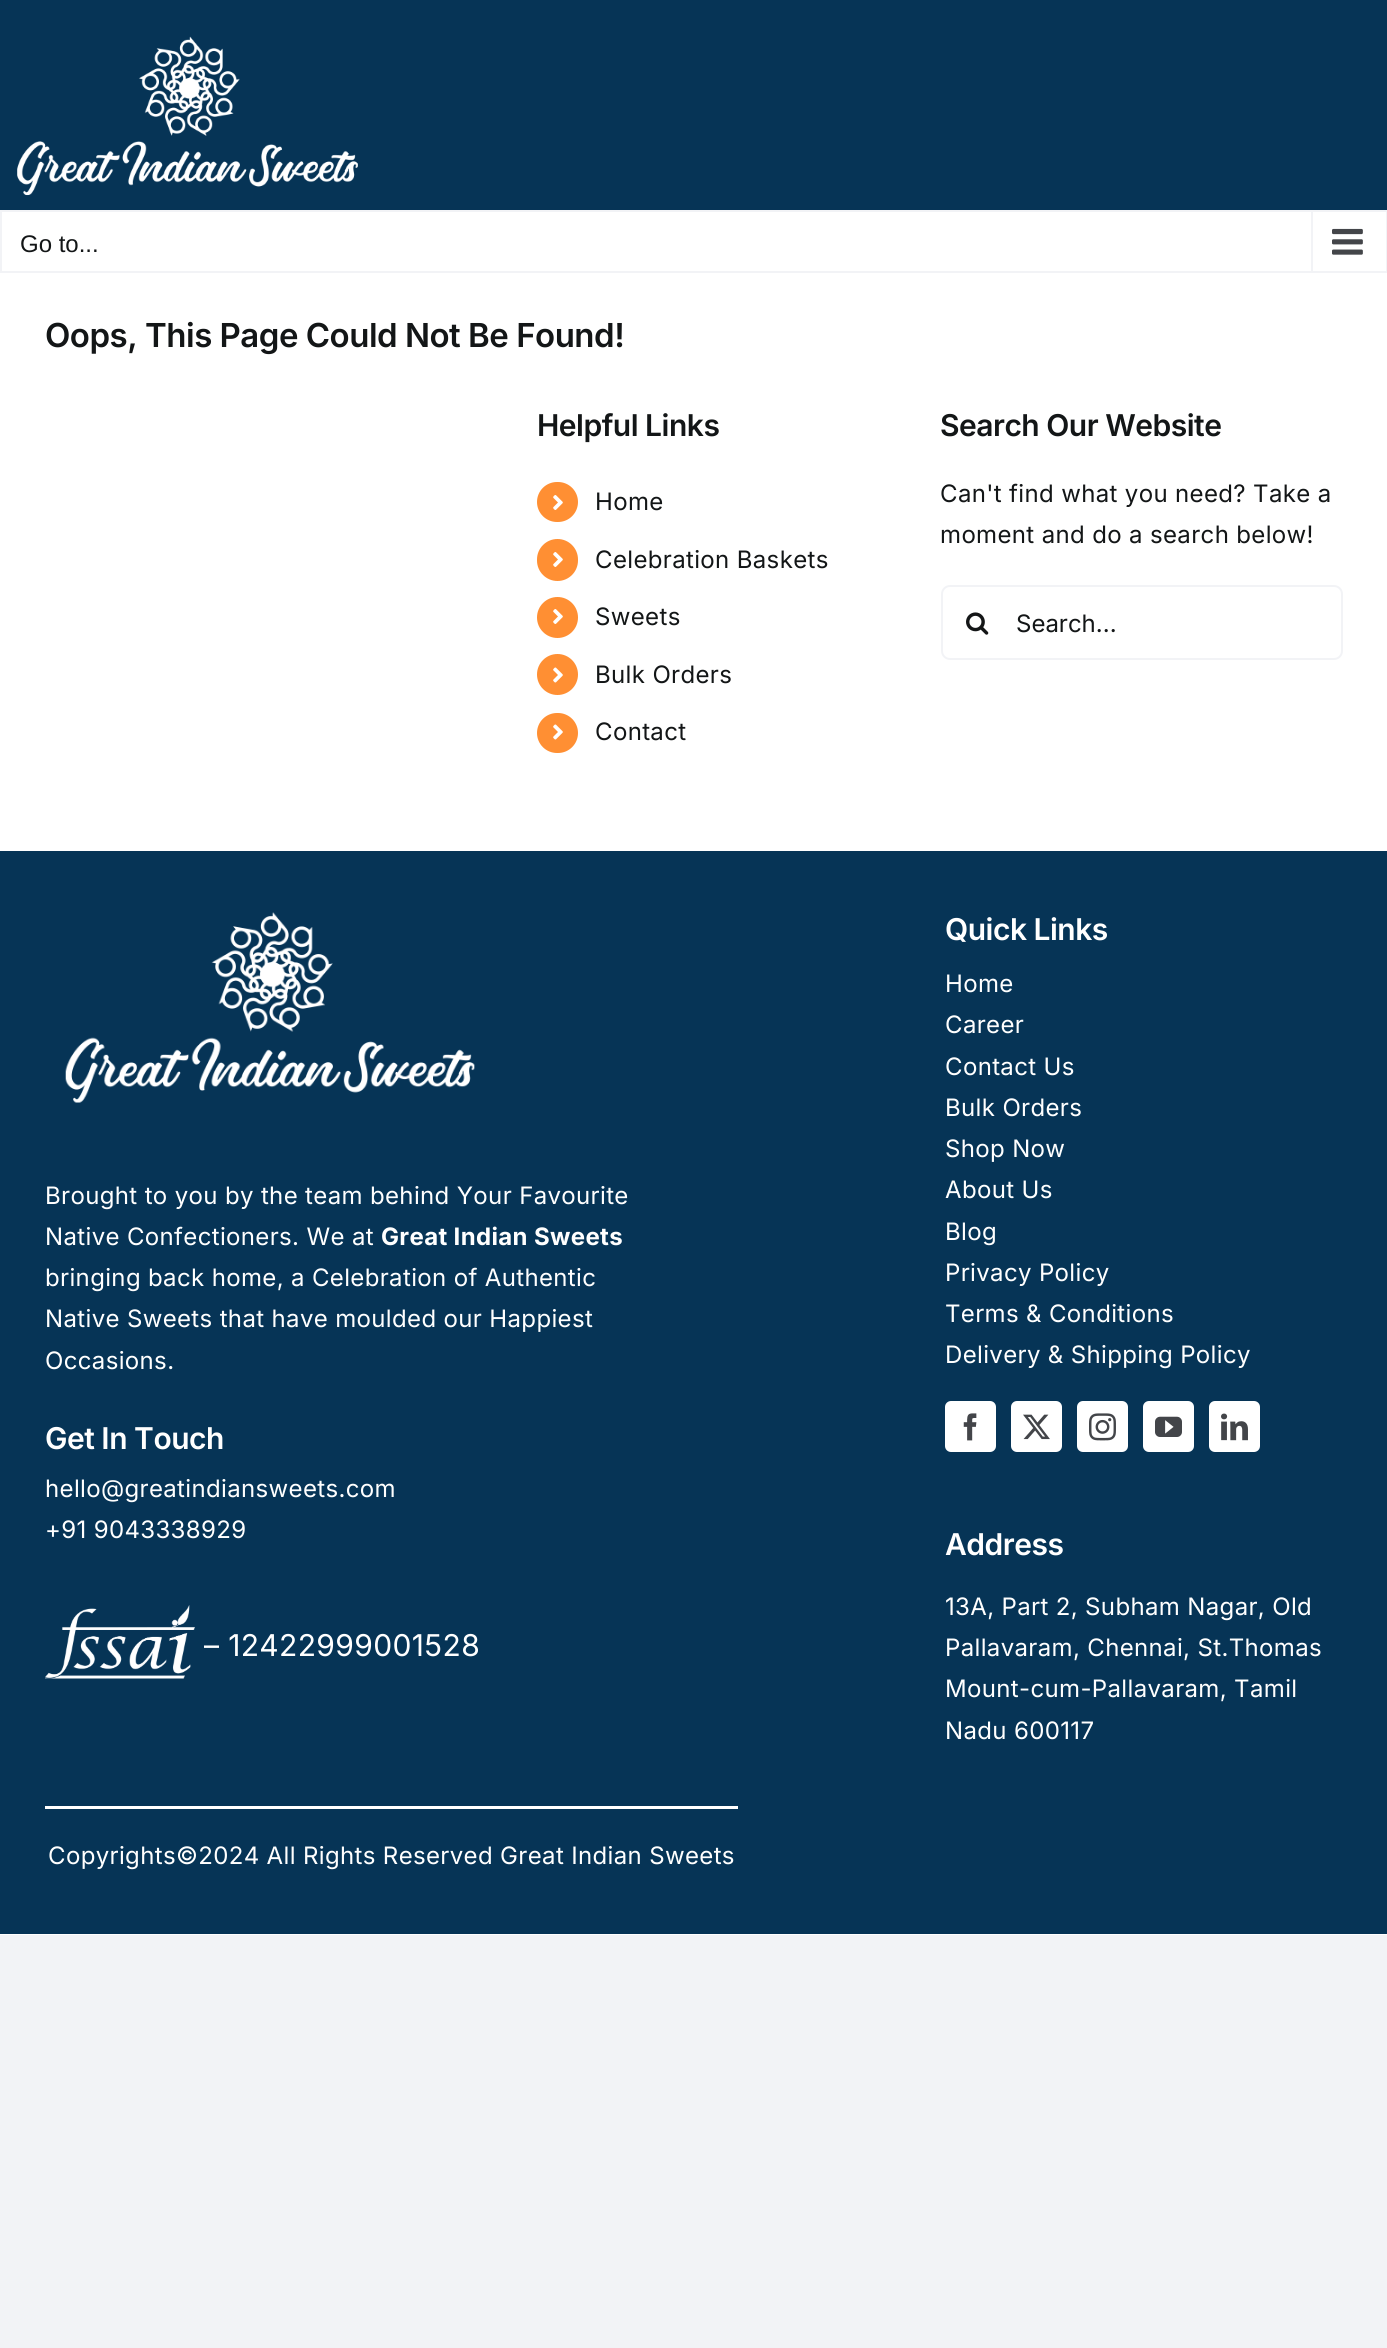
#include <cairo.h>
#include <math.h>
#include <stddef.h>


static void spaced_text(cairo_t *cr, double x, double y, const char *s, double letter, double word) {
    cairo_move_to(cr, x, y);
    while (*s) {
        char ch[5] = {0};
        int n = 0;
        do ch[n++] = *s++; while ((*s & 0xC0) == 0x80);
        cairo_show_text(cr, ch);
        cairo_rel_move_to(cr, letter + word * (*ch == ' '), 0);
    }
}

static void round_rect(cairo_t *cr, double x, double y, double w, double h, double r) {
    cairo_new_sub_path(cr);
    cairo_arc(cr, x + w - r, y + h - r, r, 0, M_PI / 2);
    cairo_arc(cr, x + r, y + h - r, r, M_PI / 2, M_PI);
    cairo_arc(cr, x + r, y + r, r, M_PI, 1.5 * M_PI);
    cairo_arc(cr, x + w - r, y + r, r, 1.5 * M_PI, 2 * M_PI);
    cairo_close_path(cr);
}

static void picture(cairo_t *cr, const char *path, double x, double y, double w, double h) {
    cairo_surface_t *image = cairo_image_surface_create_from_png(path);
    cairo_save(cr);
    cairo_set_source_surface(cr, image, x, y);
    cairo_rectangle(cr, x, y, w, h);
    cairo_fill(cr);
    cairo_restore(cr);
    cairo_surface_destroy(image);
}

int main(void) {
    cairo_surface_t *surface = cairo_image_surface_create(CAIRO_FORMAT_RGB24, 1387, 2348);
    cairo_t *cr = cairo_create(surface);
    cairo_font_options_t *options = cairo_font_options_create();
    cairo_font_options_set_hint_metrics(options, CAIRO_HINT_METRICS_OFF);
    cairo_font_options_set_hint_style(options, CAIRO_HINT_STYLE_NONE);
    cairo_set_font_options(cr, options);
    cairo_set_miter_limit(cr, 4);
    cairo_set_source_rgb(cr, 0.949, 0.953, 0.961);
    cairo_paint(cr);
    cairo_set_source_rgb(cr, 1, 1, 1);
    cairo_rectangle(cr, 0, 273, 1387, 1662);
    cairo_fill(cr);
    cairo_set_source_rgb(cr, 0.024, 0.204, 0.337);
    cairo_rectangle(cr, 0, 0, 1387, 210);
    cairo_fill(cr);
    picture(cr, "img1.png", 17, 36, 341, 160);
    cairo_set_source_rgb(cr, 1, 1, 1);
    cairo_rectangle(cr, 2, 212, 1384, 59);
    cairo_fill(cr);
    cairo_select_font_face(cr, "Liberation Sans", CAIRO_FONT_SLANT_NORMAL, CAIRO_FONT_WEIGHT_NORMAL);
    cairo_set_font_size(cr, 24);
    cairo_set_source_rgb(cr, 0.078, 0.086, 0.09);
    cairo_move_to(cr, 20, 252);
    cairo_show_text(cr, "Go to...");
    cairo_set_source_rgb(cr, 0.949, 0.953, 0.961);
    cairo_rectangle(cr, 1311, 212, 2, 60);
    cairo_fill(cr);
    picture(cr, "img2.png", 1332, 228, 31, 27);
    cairo_select_font_face(cr, "Inter SemiBold", CAIRO_FONT_SLANT_NORMAL, CAIRO_FONT_WEIGHT_NORMAL);
    cairo_set_font_size(cr, 33);
    cairo_set_source_rgb(cr, 0.078, 0.086, 0.09);
    spaced_text(cr, 45, 347, "Oops, This Page Could Not Be Found!", -0.5, 0);
    cairo_set_font_size(cr, 30);
    spaced_text(cr, 537, 436, "Helpful Links", -0.5, 0);
    cairo_set_source_rgb(cr, 1, 0.561, 0.2);
    round_rect(cr, 537, 482, 41, 40, 20);
    cairo_fill(cr);
    picture(cr, "img3.png", 553, 495, 10, 15);
    cairo_select_font_face(cr, "Inter", CAIRO_FONT_SLANT_NORMAL, CAIRO_FONT_WEIGHT_NORMAL);
    cairo_set_font_size(cr, 24);
    cairo_set_source_rgb(cr, 0.078, 0.086, 0.09);
    spaced_text(cr, 595, 510, "Home", 0.35, 0);
    cairo_set_source_rgb(cr, 1, 0.561, 0.2);
    round_rect(cr, 537, 539, 41, 42, 20.5);
    cairo_fill(cr);
    picture(cr, "img3.png", 553, 552, 10, 15);
    cairo_set_source_rgb(cr, 0.078, 0.086, 0.09);
    spaced_text(cr, 595, 568, "Celebration Baskets", 0.35, 0);
    cairo_set_source_rgb(cr, 1, 0.561, 0.2);
    cairo_new_path(cr);
    cairo_arc(cr, 557.5, 617.5, 20.5, 0, 2 * M_PI);
    cairo_fill(cr);
    picture(cr, "img3.png", 553, 609, 10, 15);
    cairo_set_source_rgb(cr, 0.078, 0.086, 0.09);
    spaced_text(cr, 595, 625, "Sweets", 0.35, 0);
    cairo_set_source_rgb(cr, 1, 0.561, 0.2);
    cairo_new_path(cr);
    cairo_arc(cr, 557.5, 674.5, 20.5, 0, 2 * M_PI);
    cairo_fill(cr);
    picture(cr, "img4.png", 553, 667, 10, 16);
    cairo_set_source_rgb(cr, 0.078, 0.086, 0.09);
    spaced_text(cr, 595, 683, "Bulk Orders", 0.35, 0);
    cairo_set_source_rgb(cr, 1, 0.561, 0.2);
    round_rect(cr, 537, 713, 41, 40, 20);
    cairo_fill(cr);
    picture(cr, "img4.png", 553, 724, 10, 16);
    cairo_set_source_rgb(cr, 0.078, 0.086, 0.09);
    spaced_text(cr, 595, 740, "Contact", 0.35, 0);
    cairo_select_font_face(cr, "Inter SemiBold", CAIRO_FONT_SLANT_NORMAL, CAIRO_FONT_WEIGHT_NORMAL);
    cairo_set_font_size(cr, 30);
    spaced_text(cr, 940, 436, "Search Our Website", -0.5, 0);
    cairo_select_font_face(cr, "Inter", CAIRO_FONT_SLANT_NORMAL, CAIRO_FONT_WEIGHT_NORMAL);
    cairo_set_font_size(cr, 24);
    spaced_text(cr, 940, 502, "Can't find what you need? Take a", 0.35, 0);
    spaced_text(cr, 940, 543, "moment and do a search below!", 0.35, 0);
    round_rect(cr, 942, 586, 400, 73, 8);
    cairo_set_source_rgb(cr, 0.949, 0.953, 0.961);
    cairo_stroke(cr);
    picture(cr, "img5.png", 966, 612, 23, 23);
    cairo_set_source_rgb(cr, 0.078, 0.086, 0.09);
    cairo_move_to(cr, 1016, 632);
    cairo_show_text(cr, "Search...");
    cairo_set_source_rgb(cr, 0.024, 0.204, 0.337);
    cairo_rectangle(cr, 0, 851, 1387, 1083);
    cairo_fill(cr);
    picture(cr, "img6.png", 65, 912, 410, 191);
    cairo_set_source_rgb(cr, 1, 1, 1);
    spaced_text(cr, 45, 1204, "Brought to you by the team behind Your Favourite", 0.35, 0);
    spaced_text(cr, 45, 1245, "Native Confectioners. We at", 0.35, 0);
    cairo_select_font_face(cr, "Inter", CAIRO_FONT_SLANT_NORMAL, CAIRO_FONT_WEIGHT_BOLD);
    spaced_text(cr, 381, 1245, "Great Indian Sweets", 0.35, 0);
    cairo_select_font_face(cr, "Inter", CAIRO_FONT_SLANT_NORMAL, CAIRO_FONT_WEIGHT_NORMAL);
    spaced_text(cr, 45, 1286, "bringing back home, a Celebration of Authentic", 0.35, 0);
    spaced_text(cr, 45, 1327, "Native Sweets that have moulded our Happiest", 0.35, 0);
    spaced_text(cr, 45, 1369, "Occasions.", 0.35, 0);
    cairo_select_font_face(cr, "Inter SemiBold", CAIRO_FONT_SLANT_NORMAL, CAIRO_FONT_WEIGHT_NORMAL);
    cairo_set_font_size(cr, 30);
    spaced_text(cr, 45, 1449, "Get In Touch", -0.5, 0);
    cairo_select_font_face(cr, "Inter", CAIRO_FONT_SLANT_NORMAL, CAIRO_FONT_WEIGHT_NORMAL);
    cairo_set_font_size(cr, 24);
    spaced_text(cr, 45, 1497, "hello@greatindiansweets.com", 0.35, 0);
    spaced_text(cr, 45, 1538, "+91 9043338929", 0.35, 0);
    picture(cr, "img7.png", 45, 1605, 150, 74);
    cairo_set_font_size(cr, 30);
    spaced_text(cr, 204, 1656, "– 12422999001528", 0.35, 0);
    cairo_select_font_face(cr, "Inter SemiBold", CAIRO_FONT_SLANT_NORMAL, CAIRO_FONT_WEIGHT_NORMAL);
    spaced_text(cr, 945, 940, "Quick Links", -0.5, 0);
    cairo_select_font_face(cr, "Inter", CAIRO_FONT_SLANT_NORMAL, CAIRO_FONT_WEIGHT_NORMAL);
    cairo_set_font_size(cr, 24);
    spaced_text(cr, 945, 992, "Home", 0.35, 0);
    spaced_text(cr, 945, 1033, "Career", 0.35, 0);
    spaced_text(cr, 945, 1075, "Contact Us", 0.35, 0);
    spaced_text(cr, 945, 1116, "Bulk Orders", 0.35, 0);
    spaced_text(cr, 945, 1157, "Shop Now", 0.35, 0);
    spaced_text(cr, 945, 1198, "About Us", 0.35, 0);
    spaced_text(cr, 945, 1240, "Blog", 0.35, 0);
    spaced_text(cr, 945, 1281, "Privacy Policy", 0.35, 0);
    spaced_text(cr, 945, 1322, "Terms & Conditions", 0.35, 0);
    spaced_text(cr, 945, 1363, "Delivery & Shipping Policy", 0.35, 0);
    round_rect(cr, 945, 1401, 51, 51, 6);
    cairo_fill(cr);
    picture(cr, "img8.png", 963, 1413, 14, 28);
    round_rect(cr, 1011, 1401, 51, 51, 6);
    cairo_fill(cr);
    picture(cr, "img9.png", 1023, 1414, 27, 26);
    round_rect(cr, 1077, 1401, 51, 51, 6);
    cairo_fill(cr);
    picture(cr, "img10.png", 1089, 1413, 27, 28);
    round_rect(cr, 1143, 1401, 51, 51, 6);
    cairo_fill(cr);
    picture(cr, "img11.png", 1155, 1416, 27, 21);
    round_rect(cr, 1209, 1401, 51, 51, 6);
    cairo_fill(cr);
    picture(cr, "img12.png", 1221, 1413, 27, 28);
    cairo_select_font_face(cr, "Inter SemiBold", CAIRO_FONT_SLANT_NORMAL, CAIRO_FONT_WEIGHT_NORMAL);
    cairo_set_font_size(cr, 30);
    spaced_text(cr, 945, 1555, "Address", -0.5, 0);
    cairo_select_font_face(cr, "Inter", CAIRO_FONT_SLANT_NORMAL, CAIRO_FONT_WEIGHT_NORMAL);
    cairo_set_font_size(cr, 24);
    spaced_text(cr, 945, 1615, "13A, Part 2, Subham Nagar, Old", 0.35, 0);
    spaced_text(cr, 945, 1656, "Pallavaram, Chennai, St.Thomas", 0.35, 0);
    spaced_text(cr, 945, 1697, "Mount-cum-Pallavaram, Tamil", 0.35, 0);
    spaced_text(cr, 945, 1739, "Nadu 600117", 0.35, 0);
    cairo_rectangle(cr, 45, 1806, 693, 3);
    cairo_fill(cr);
    spaced_text(cr, 48, 1864, "Copyrights©2024 All Rights Reserved Great Indian Sweets", 0.35, 0);
    cairo_surface_write_to_png(surface, "page.png");
    cairo_font_options_destroy(options);
    cairo_destroy(cr);
    cairo_surface_destroy(surface);
    return 0;
}
